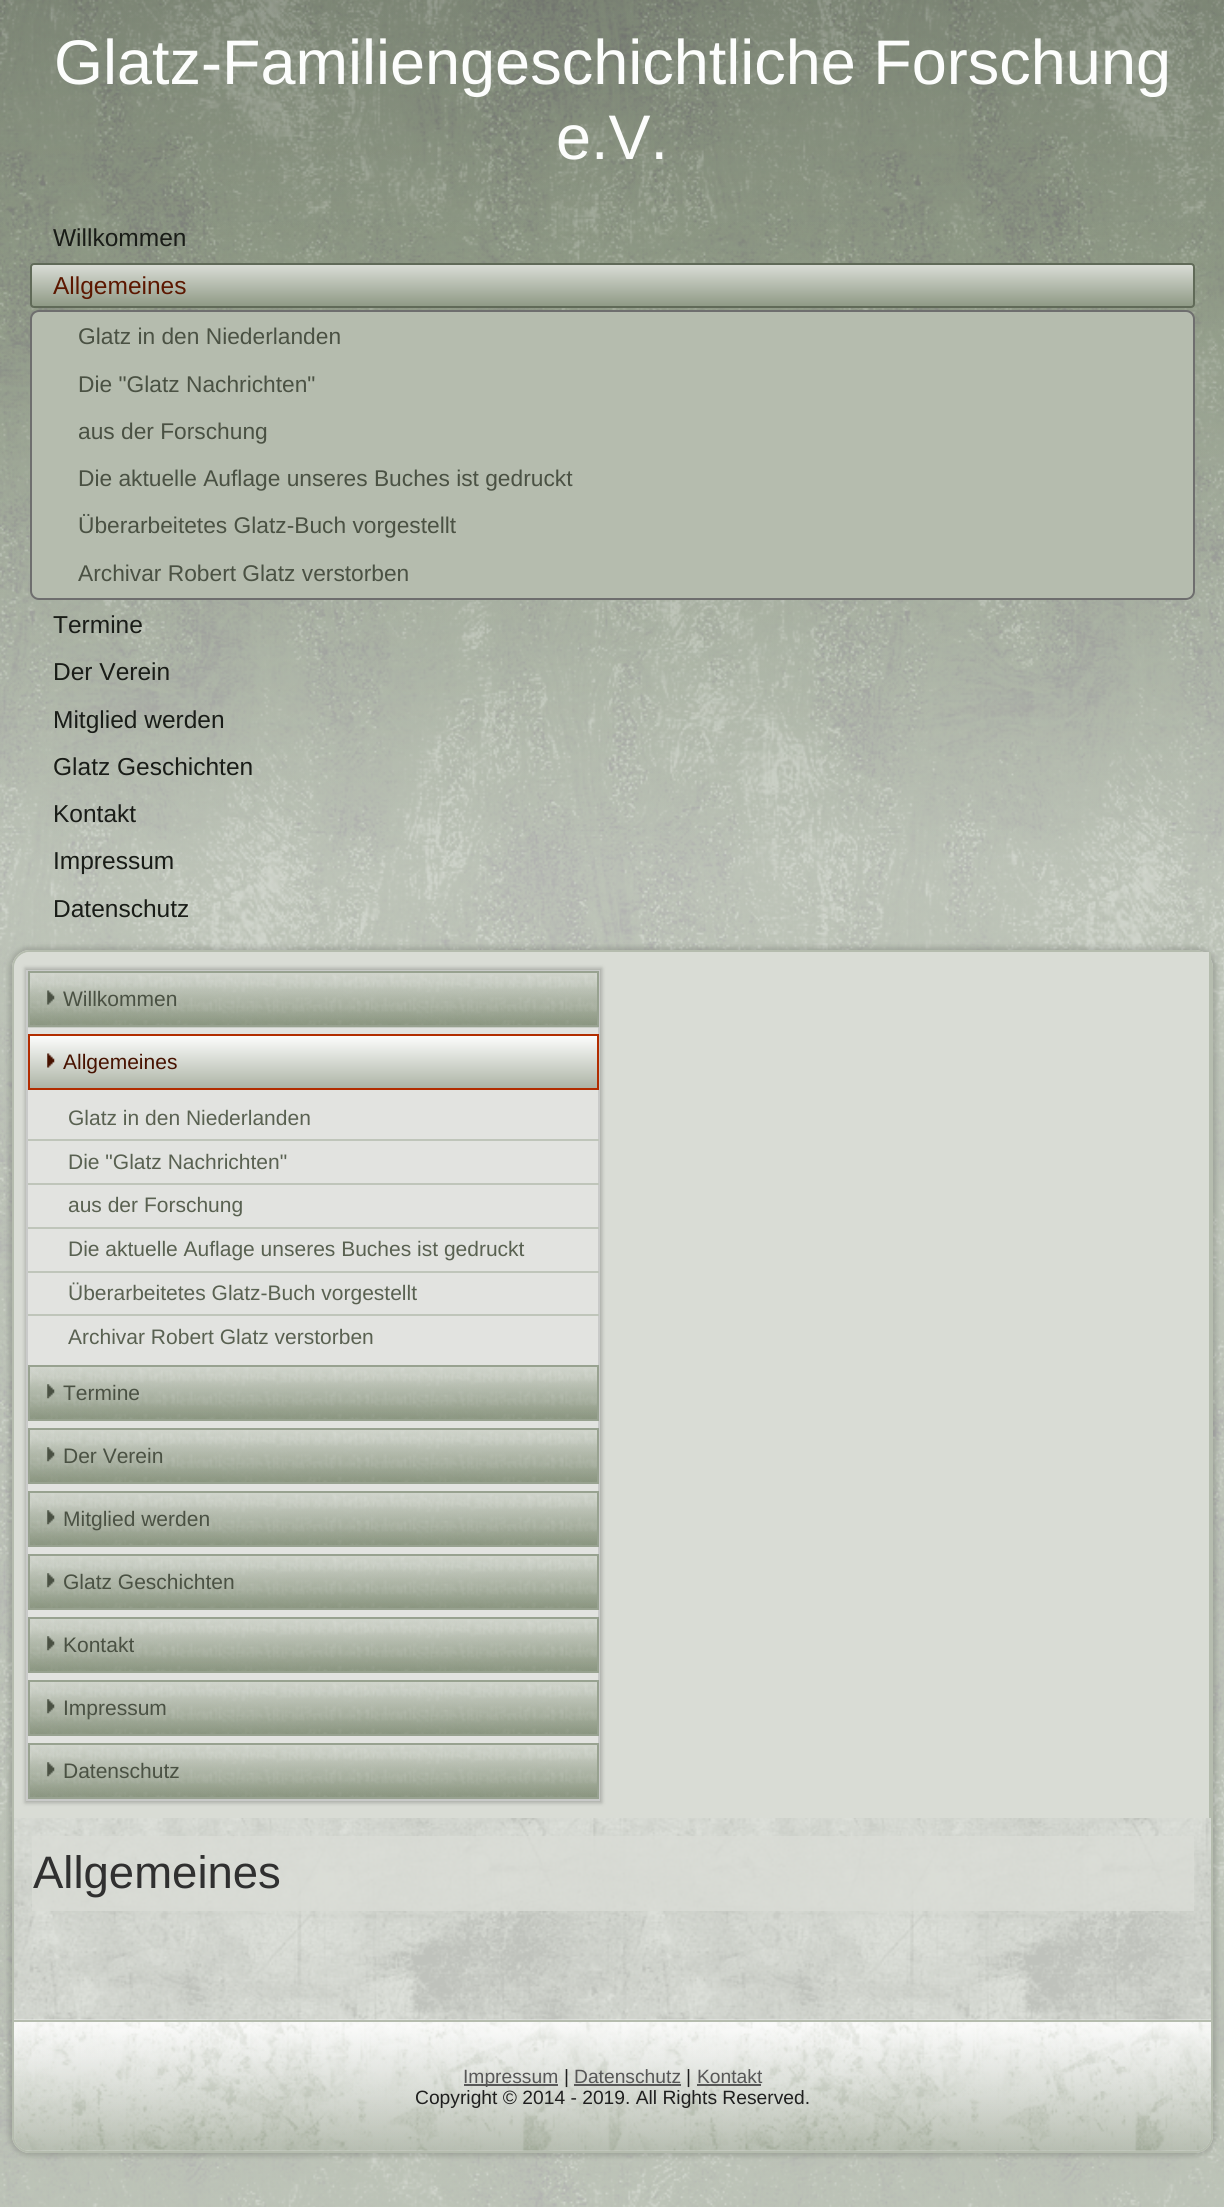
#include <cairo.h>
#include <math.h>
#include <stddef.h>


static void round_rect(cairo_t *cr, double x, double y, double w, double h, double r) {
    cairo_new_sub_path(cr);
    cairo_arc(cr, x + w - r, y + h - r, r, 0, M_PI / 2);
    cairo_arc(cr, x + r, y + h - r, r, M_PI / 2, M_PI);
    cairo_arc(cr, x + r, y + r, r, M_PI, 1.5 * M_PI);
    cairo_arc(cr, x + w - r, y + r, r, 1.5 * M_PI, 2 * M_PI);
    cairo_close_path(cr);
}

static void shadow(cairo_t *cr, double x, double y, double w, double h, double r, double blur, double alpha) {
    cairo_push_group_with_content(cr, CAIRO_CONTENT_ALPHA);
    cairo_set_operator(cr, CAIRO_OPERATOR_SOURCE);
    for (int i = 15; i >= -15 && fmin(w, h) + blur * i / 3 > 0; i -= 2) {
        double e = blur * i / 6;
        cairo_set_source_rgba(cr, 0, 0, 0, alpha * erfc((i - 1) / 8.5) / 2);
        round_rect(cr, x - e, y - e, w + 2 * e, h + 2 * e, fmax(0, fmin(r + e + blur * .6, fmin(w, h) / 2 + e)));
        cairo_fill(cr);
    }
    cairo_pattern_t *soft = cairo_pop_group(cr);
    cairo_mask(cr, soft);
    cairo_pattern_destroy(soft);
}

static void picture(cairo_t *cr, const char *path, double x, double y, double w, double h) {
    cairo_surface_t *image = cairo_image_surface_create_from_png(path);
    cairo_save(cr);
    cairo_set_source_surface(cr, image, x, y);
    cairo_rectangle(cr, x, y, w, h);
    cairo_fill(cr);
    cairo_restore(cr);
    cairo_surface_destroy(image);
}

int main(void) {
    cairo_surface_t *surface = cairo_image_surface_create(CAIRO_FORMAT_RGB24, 1224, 2207);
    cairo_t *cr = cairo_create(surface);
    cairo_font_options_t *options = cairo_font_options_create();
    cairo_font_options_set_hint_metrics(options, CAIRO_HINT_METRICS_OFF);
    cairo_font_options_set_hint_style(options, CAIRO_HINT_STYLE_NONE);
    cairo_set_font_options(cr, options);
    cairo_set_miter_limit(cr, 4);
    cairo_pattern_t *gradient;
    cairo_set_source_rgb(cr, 1, 1, 1);
    cairo_paint(cr);
    picture(cr, "img1.png", 0, 0, 1224, 2207);
    cairo_select_font_face(cr, "Liberation Sans", CAIRO_FONT_SLANT_NORMAL, CAIRO_FONT_WEIGHT_NORMAL);
    cairo_set_font_size(cr, 63);
    cairo_set_source_rgb(cr, 0.988, 0.992, 0.988);
    cairo_move_to(cr, 54, 84);
    cairo_show_text(cr, "Glatz-Familiengeschichtliche Forschung");
    cairo_move_to(cr, 556, 159);
    cairo_show_text(cr, "e.V.");
    cairo_set_font_size(cr, 24.5);
    cairo_set_source_rgb(cr, 0.098, 0.11, 0.09);
    cairo_move_to(cr, 53, 246);
    cairo_show_text(cr, "Willkommen");
    gradient = cairo_pattern_create_linear(613, 262, 613, 308);
    cairo_pattern_add_color_stop_rgba(gradient, 0, 0.871, 0.882, 0.859, 1);
    cairo_pattern_add_color_stop_rgba(gradient, 1, 0.549, 0.592, 0.51, 1);
    cairo_set_source(cr, gradient);
    cairo_pattern_destroy(gradient);
    round_rect(cr, 31, 264, 1163, 43, 3);
    cairo_fill_preserve(cr);
    cairo_set_source_rgb(cr, 0.376, 0.416, 0.345);
    cairo_stroke(cr);
    cairo_set_source_rgb(cr, 0.361, 0.09, 0);
    cairo_move_to(cr, 53, 294);
    cairo_show_text(cr, "Allgemeines");
    cairo_set_source_rgb(cr, 0.71, 0.737, 0.682);
    round_rect(cr, 31, 311, 1163, 288, 8);
    cairo_fill_preserve(cr);
    cairo_set_source_rgb(cr, 0.431, 0.431, 0.431);
    cairo_stroke(cr);
    cairo_set_font_size(cr, 22.75);
    cairo_set_source_rgb(cr, 0.29, 0.318, 0.263);
    cairo_move_to(cr, 78, 344);
    cairo_show_text(cr, "Glatz in den Niederlanden");
    cairo_move_to(cr, 78, 392);
    cairo_show_text(cr, "Die \"Glatz Nachrichten\"");
    cairo_move_to(cr, 78, 439);
    cairo_show_text(cr, "aus der Forschung");
    cairo_move_to(cr, 78, 486);
    cairo_show_text(cr, "Die aktuelle Auflage unseres Buches ist gedruckt");
    cairo_move_to(cr, 78, 533);
    cairo_show_text(cr, "Überarbeitetes Glatz-Buch vorgestellt");
    cairo_move_to(cr, 78, 581);
    cairo_show_text(cr, "Archivar Robert Glatz verstorben");
    cairo_set_font_size(cr, 24.5);
    cairo_set_source_rgb(cr, 0.098, 0.11, 0.09);
    cairo_move_to(cr, 53, 633);
    cairo_show_text(cr, "Termine");
    cairo_move_to(cr, 53, 680);
    cairo_show_text(cr, "Der Verein");
    cairo_move_to(cr, 53, 728);
    cairo_show_text(cr, "Mitglied werden");
    cairo_move_to(cr, 53, 775);
    cairo_show_text(cr, "Glatz Geschichten");
    cairo_move_to(cr, 53, 822);
    cairo_show_text(cr, "Kontakt");
    cairo_move_to(cr, 53, 869);
    cairo_show_text(cr, "Impressum");
    cairo_move_to(cr, 53, 917);
    cairo_show_text(cr, "Datenschutz");
    cairo_set_source_rgb(cr, 0, 0, 0);
    shadow(cr, 9, 947, 1207, 1209, 21, 2.5, 0.15);
    cairo_set_source_rgb(cr, 0.851, 0.863, 0.835);
    round_rect(cr, 12, 950, 1201, 1203, 18);
    cairo_fill(cr);
    picture(cr, "img2.png", 12, 950, 1201, 1203);
    round_rect(cr, 13, 951, 1199, 1201, 17);
    cairo_set_source_rgb(cr, 0.71, 0.737, 0.682);
    cairo_stroke(cr);
    cairo_set_source_rgb(cr, 0.851, 0.863, 0.835);
    cairo_new_path(cr);
    cairo_move_to(cr, 30, 952);
    cairo_line_to(cr, 1211, 952);
    cairo_line_to(cr, 1211, 1818);
    cairo_line_to(cr, 14, 1818);
    cairo_line_to(cr, 14, 968);
    cairo_curve_to(cr, 14, 959, 21, 952, 30, 952);
    cairo_close_path(cr);
    cairo_fill(cr);
    cairo_set_source_rgb(cr, 0.71, 0.737, 0.682);
    cairo_rectangle(cr, 1209, 952, 2, 866);
    cairo_fill(cr);
    cairo_save(cr);
    cairo_set_fill_rule(cr, CAIRO_FILL_RULE_EVEN_ODD);
    cairo_new_path(cr);
    cairo_move_to(cr, 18, 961);
    cairo_line_to(cr, 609, 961);
    cairo_line_to(cr, 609, 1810);
    cairo_line_to(cr, 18, 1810);
    cairo_close_path(cr);
    cairo_move_to(cr, 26, 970);
    cairo_line_to(cr, 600, 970);
    cairo_line_to(cr, 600, 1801);
    cairo_line_to(cr, 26, 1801);
    cairo_close_path(cr);
    cairo_clip(cr);
    cairo_set_source_rgb(cr, 0, 0, 0);
    shadow(cr, 25, 968, 577, 835, 0, 2, 0.21);
    cairo_restore(cr);
    cairo_set_source_rgba(cr, 0.91, 0.91, 0.91, 0.6);
    cairo_rectangle(cr, 26, 970, 574, 831);
    cairo_fill(cr);
    cairo_rectangle(cr, 27, 971, 572, 829);
    cairo_set_source_rgba(cr, 0.729, 0.729, 0.729, 0.6);
    cairo_stroke(cr);
    picture(cr, "img3.png", 28, 973, 571, 55);
    cairo_rectangle(cr, 29, 972, 569, 54);
    cairo_set_source_rgb(cr, 0.596, 0.635, 0.565);
    cairo_stroke(cr);
    picture(cr, "img4.png", 47, 990, 8, 15);
    cairo_set_font_size(cr, 21);
    cairo_set_source_rgb(cr, 0.29, 0.318, 0.263);
    cairo_move_to(cr, 63, 1006);
    cairo_show_text(cr, "Willkommen");
    gradient = cairo_pattern_create_linear(313, 1034, 313, 1090);
    cairo_pattern_add_color_stop_rgba(gradient, 0, 1, 1, 1, 1);
    cairo_pattern_add_color_stop_rgba(gradient, 1, 0.667, 0.698, 0.639, 1);
    cairo_set_source(cr, gradient);
    cairo_pattern_destroy(gradient);
    cairo_rectangle(cr, 30, 1036, 567, 52);
    cairo_fill(cr);
    cairo_rectangle(cr, 29, 1035, 569, 54);
    cairo_set_source_rgb(cr, 0.698, 0.176, 0);
    cairo_stroke(cr);
    picture(cr, "img5.png", 47, 1053, 8, 15);
    cairo_set_source_rgb(cr, 0.278, 0.071, 0);
    cairo_move_to(cr, 63, 1069);
    cairo_show_text(cr, "Allgemeines");
    cairo_set_source_rgb(cr, 0.349, 0.38, 0.318);
    cairo_move_to(cr, 68, 1125);
    cairo_show_text(cr, "Glatz in den Niederlanden");
    cairo_set_source_rgb(cr, 0.749, 0.773, 0.729);
    cairo_rectangle(cr, 28, 1139, 571, 2);
    cairo_fill(cr);
    cairo_set_source_rgb(cr, 0.349, 0.38, 0.318);
    cairo_move_to(cr, 68, 1169);
    cairo_show_text(cr, "Die \"Glatz Nachrichten\"");
    cairo_set_source_rgb(cr, 0.749, 0.773, 0.729);
    cairo_rectangle(cr, 28, 1183, 571, 2);
    cairo_fill(cr);
    cairo_set_source_rgb(cr, 0.349, 0.38, 0.318);
    cairo_move_to(cr, 68, 1212);
    cairo_show_text(cr, "aus der Forschung");
    cairo_set_source_rgb(cr, 0.749, 0.773, 0.729);
    cairo_rectangle(cr, 28, 1227, 571, 2);
    cairo_fill(cr);
    cairo_set_source_rgb(cr, 0.349, 0.38, 0.318);
    cairo_move_to(cr, 68, 1256);
    cairo_show_text(cr, "Die aktuelle Auflage unseres Buches ist gedruckt");
    cairo_set_source_rgb(cr, 0.749, 0.773, 0.729);
    cairo_rectangle(cr, 28, 1271, 571, 2);
    cairo_fill(cr);
    cairo_set_source_rgb(cr, 0.349, 0.38, 0.318);
    cairo_move_to(cr, 68, 1300);
    cairo_show_text(cr, "Überarbeitetes Glatz-Buch vorgestellt");
    cairo_set_source_rgb(cr, 0.749, 0.773, 0.729);
    cairo_rectangle(cr, 28, 1314, 571, 2);
    cairo_fill(cr);
    cairo_set_source_rgb(cr, 0.349, 0.38, 0.318);
    cairo_move_to(cr, 68, 1344);
    cairo_show_text(cr, "Archivar Robert Glatz verstorben");
    picture(cr, "img6.png", 30, 1367, 567, 52);
    cairo_rectangle(cr, 29, 1366, 569, 54);
    cairo_set_source_rgb(cr, 0.596, 0.635, 0.565);
    cairo_stroke(cr);
    picture(cr, "img7.png", 47, 1384, 8, 15);
    cairo_set_source_rgb(cr, 0.29, 0.318, 0.263);
    cairo_move_to(cr, 63, 1400);
    cairo_show_text(cr, "Termine");
    picture(cr, "img8.png", 30, 1430, 567, 52);
    cairo_rectangle(cr, 29, 1429, 569, 54);
    cairo_set_source_rgb(cr, 0.596, 0.635, 0.565);
    cairo_stroke(cr);
    picture(cr, "img9.png", 47, 1447, 8, 15);
    cairo_set_source_rgb(cr, 0.29, 0.318, 0.263);
    cairo_move_to(cr, 63, 1463);
    cairo_show_text(cr, "Der Verein");
    picture(cr, "img10.png", 30, 1493, 567, 52);
    cairo_rectangle(cr, 29, 1492, 569, 54);
    cairo_set_source_rgb(cr, 0.596, 0.635, 0.565);
    cairo_stroke(cr);
    picture(cr, "img11.png", 47, 1510, 8, 15);
    cairo_set_source_rgb(cr, 0.29, 0.318, 0.263);
    cairo_move_to(cr, 63, 1526);
    cairo_show_text(cr, "Mitglied werden");
    picture(cr, "img8.png", 30, 1556, 567, 52);
    cairo_rectangle(cr, 29, 1555, 569, 54);
    cairo_set_source_rgb(cr, 0.596, 0.635, 0.565);
    cairo_stroke(cr);
    picture(cr, "img9.png", 47, 1573, 8, 15);
    cairo_set_source_rgb(cr, 0.29, 0.318, 0.263);
    cairo_move_to(cr, 63, 1589);
    cairo_show_text(cr, "Glatz Geschichten");
    picture(cr, "img12.png", 30, 1619, 567, 52);
    cairo_rectangle(cr, 29, 1618, 569, 54);
    cairo_set_source_rgb(cr, 0.596, 0.635, 0.565);
    cairo_stroke(cr);
    picture(cr, "img11.png", 47, 1636, 8, 15);
    cairo_set_source_rgb(cr, 0.29, 0.318, 0.263);
    cairo_move_to(cr, 63, 1652);
    cairo_show_text(cr, "Kontakt");
    picture(cr, "img13.png", 30, 1682, 567, 52);
    cairo_rectangle(cr, 29, 1681, 569, 54);
    cairo_set_source_rgb(cr, 0.596, 0.635, 0.565);
    cairo_stroke(cr);
    picture(cr, "img14.png", 47, 1699, 8, 15);
    cairo_set_source_rgb(cr, 0.29, 0.318, 0.263);
    cairo_move_to(cr, 63, 1715);
    cairo_show_text(cr, "Impressum");
    picture(cr, "img15.png", 30, 1745, 567, 52);
    cairo_rectangle(cr, 29, 1744, 569, 54);
    cairo_set_source_rgb(cr, 0.596, 0.635, 0.565);
    cairo_stroke(cr);
    picture(cr, "img16.png", 47, 1762, 8, 15);
    cairo_set_source_rgb(cr, 0.29, 0.318, 0.263);
    cairo_move_to(cr, 63, 1778);
    cairo_show_text(cr, "Datenschutz");
    cairo_set_source_rgba(cr, 0.851, 0.863, 0.835, 0.8);
    cairo_rectangle(cr, 32, 1836, 1162, 75);
    cairo_fill(cr);
    cairo_set_font_size(cr, 45.5);
    cairo_set_source_rgb(cr, 0.188, 0.188, 0.188);
    cairo_move_to(cr, 33, 1888);
    cairo_show_text(cr, "Allgemeines");
    picture(cr, "img17.png", 14, 2019, 1197, 132);
    cairo_set_source_rgb(cr, 0.71, 0.737, 0.682);
    cairo_rectangle(cr, 14, 2020, 1197, 2);
    cairo_fill(cr);
    cairo_set_source_rgb(cr, 0.341, 0.341, 0.341);
    cairo_rectangle(cr, 464, 2084, 94, 2);
    cairo_fill(cr);
    cairo_set_font_size(cr, 19.25);
    cairo_move_to(cr, 463, 2083);
    cairo_show_text(cr, "Impressum");
    cairo_set_source_rgb(cr, 0.122, 0.122, 0.122);
    cairo_move_to(cr, 564, 2083);
    cairo_show_text(cr, "|");
    cairo_set_source_rgb(cr, 0.341, 0.341, 0.341);
    cairo_move_to(cr, 574, 2083);
    cairo_show_text(cr, "Datenschutz");
    cairo_rectangle(cr, 574, 2084, 107, 2);
    cairo_fill(cr);
    cairo_set_source_rgb(cr, 0.122, 0.122, 0.122);
    cairo_move_to(cr, 686, 2083);
    cairo_show_text(cr, "|");
    cairo_set_source_rgb(cr, 0.341, 0.341, 0.341);
    cairo_move_to(cr, 697, 2083);
    cairo_show_text(cr, "Kontakt");
    cairo_rectangle(cr, 697, 2084, 64, 2);
    cairo_fill(cr);
    cairo_set_source_rgb(cr, 0.122, 0.122, 0.122);
    cairo_move_to(cr, 415, 2104);
    cairo_show_text(cr, "Copyright © 2014 - 2019. All Rights Reserved.");
    cairo_surface_write_to_png(surface, "page.png");
    cairo_font_options_destroy(options);
    cairo_destroy(cr);
    cairo_surface_destroy(surface);
    return 0;
}
